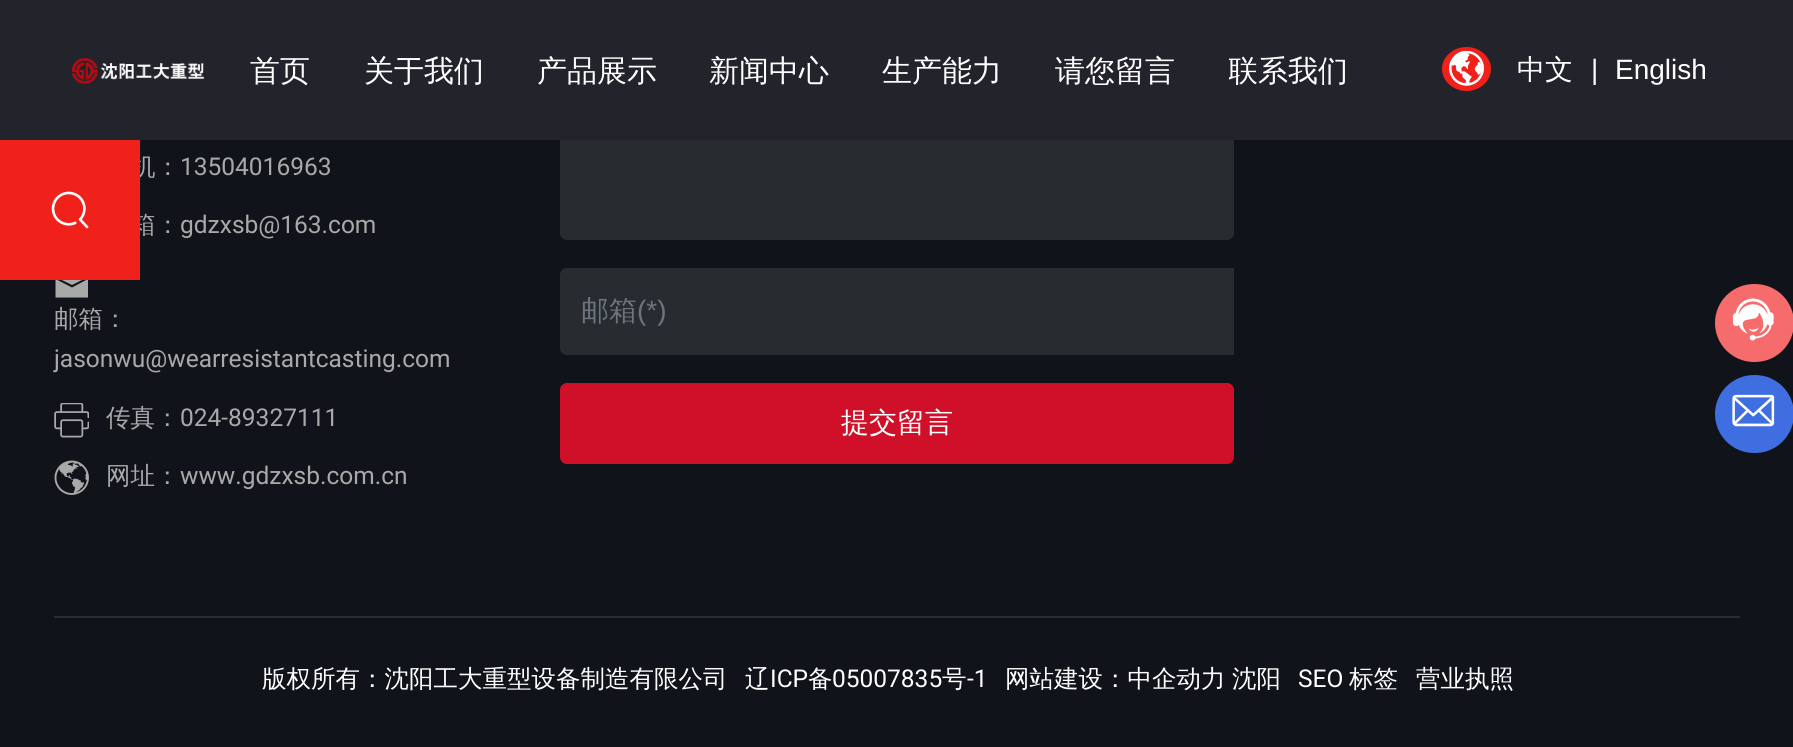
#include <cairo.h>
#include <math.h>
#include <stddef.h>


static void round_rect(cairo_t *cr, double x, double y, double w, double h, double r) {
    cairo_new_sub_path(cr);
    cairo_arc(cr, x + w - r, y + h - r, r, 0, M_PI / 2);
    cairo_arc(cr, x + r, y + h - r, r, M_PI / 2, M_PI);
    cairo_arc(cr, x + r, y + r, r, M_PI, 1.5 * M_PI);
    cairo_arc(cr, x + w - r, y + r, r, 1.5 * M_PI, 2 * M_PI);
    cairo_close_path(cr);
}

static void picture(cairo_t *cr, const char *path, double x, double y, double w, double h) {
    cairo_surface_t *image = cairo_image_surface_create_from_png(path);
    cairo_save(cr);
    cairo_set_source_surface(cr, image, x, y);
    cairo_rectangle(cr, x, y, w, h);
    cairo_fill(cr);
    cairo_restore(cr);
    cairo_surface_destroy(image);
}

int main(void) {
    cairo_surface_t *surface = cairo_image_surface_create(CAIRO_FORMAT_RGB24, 1793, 747);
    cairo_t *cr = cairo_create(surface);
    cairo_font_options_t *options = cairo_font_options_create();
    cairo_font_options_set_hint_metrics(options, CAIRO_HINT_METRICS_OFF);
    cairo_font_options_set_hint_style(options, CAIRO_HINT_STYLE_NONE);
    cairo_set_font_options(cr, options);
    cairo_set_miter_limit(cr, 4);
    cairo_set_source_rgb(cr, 0.063, 0.078, 0.098);
    cairo_paint(cr);
    cairo_set_source_rgb(cr, 0.157, 0.173, 0.188);
    round_rect(cr, 560, 79, 674, 161, 7);
    cairo_fill(cr);
    cairo_set_source_rgb(cr, 0.133, 0.137, 0.169);
    cairo_rectangle(cr, 0, 0, 1793, 140);
    cairo_fill(cr);
    picture(cr, "img1.png", 72, 58, 132, 26);
    cairo_select_font_face(cr, "WenQuanYi Zen Hei Medium", CAIRO_FONT_SLANT_NORMAL, CAIRO_FONT_WEIGHT_NORMAL);
    cairo_set_font_size(cr, 30);
    cairo_set_source_rgb(cr, 1, 1, 1);
    cairo_move_to(cr, 250, 81);
    cairo_show_text(cr, "首页");
    cairo_move_to(cr, 364, 81);
    cairo_show_text(cr, "关于我们");
    cairo_move_to(cr, 537, 81);
    cairo_show_text(cr, "产品展示");
    cairo_move_to(cr, 709, 81);
    cairo_show_text(cr, "新闻中心");
    cairo_move_to(cr, 882, 81);
    cairo_show_text(cr, "生产能力");
    cairo_move_to(cr, 1055, 81);
    cairo_show_text(cr, "请您留言");
    cairo_save(cr);
    cairo_rectangle(cr, 1229, 0, 119, 140);
    cairo_clip(cr);
    cairo_move_to(cr, 1228, 81);
    cairo_show_text(cr, "联系我们");
    cairo_restore(cr);
    cairo_set_source_rgb(cr, 0.941, 0.125, 0.102);
    cairo_new_path(cr);
    cairo_move_to(cr, 1466.5, 47);
    cairo_curve_to(cr, 1480, 47, 1491, 57, 1491, 69);
    cairo_curve_to(cr, 1491, 81, 1480, 91, 1466.5, 91);
    cairo_curve_to(cr, 1453, 91, 1442, 81, 1442, 69);
    cairo_curve_to(cr, 1442, 57, 1453, 47, 1466.5, 47);
    cairo_close_path(cr);
    cairo_fill(cr);
    picture(cr, "img2.png", 1449, 51, 35, 35);
    cairo_set_font_size(cr, 28);
    cairo_set_source_rgb(cr, 1, 1, 1);
    cairo_move_to(cr, 1517, 79);
    cairo_show_text(cr, "中文");
    cairo_select_font_face(cr, "Liberation Sans", CAIRO_FONT_SLANT_NORMAL, CAIRO_FONT_WEIGHT_NORMAL);
    cairo_move_to(cr, 1591, 79);
    cairo_show_text(cr, "|");
    cairo_move_to(cr, 1615, 79);
    cairo_show_text(cr, "English");
    cairo_select_font_face(cr, "WenQuanYi Zen Hei Medium", CAIRO_FONT_SLANT_NORMAL, CAIRO_FONT_WEIGHT_NORMAL);
    cairo_set_font_size(cr, 24.5);
    cairo_set_source_rgb(cr, 0.663, 0.663, 0.663);
    cairo_move_to(cr, 131, 175);
    cairo_show_text(cr, "机：");
    cairo_move_to(cr, 131, 233);
    cairo_show_text(cr, "箱：");
    cairo_new_path(cr);
    cairo_move_to(cr, 88, 277);
    cairo_line_to(cr, 72, 285);
    cairo_line_to(cr, 55.5, 277);
    cairo_line_to(cr, 55.5, 273);
    cairo_line_to(cr, 88, 273);
    cairo_close_path(cr);
    cairo_fill(cr);
    cairo_new_path(cr);
    cairo_move_to(cr, 55.5, 279);
    cairo_line_to(cr, 55.5, 297.5);
    cairo_line_to(cr, 88, 297.5);
    cairo_line_to(cr, 88, 279);
    cairo_line_to(cr, 72, 287.5);
    cairo_close_path(cr);
    cairo_fill(cr);
    cairo_set_source_rgb(cr, 0.941, 0.125, 0.102);
    cairo_rectangle(cr, 0, 140, 140, 140);
    cairo_fill(cr);
    picture(cr, "img3.png", 51, 191, 38, 38);
    cairo_select_font_face(cr, "Roboto", CAIRO_FONT_SLANT_NORMAL, CAIRO_FONT_WEIGHT_NORMAL);
    cairo_set_source_rgb(cr, 0.663, 0.663, 0.663);
    cairo_move_to(cr, 180, 175);
    cairo_show_text(cr, "13504016963");
    cairo_move_to(cr, 180, 233);
    cairo_show_text(cr, "gdzxsb@163.com");
    cairo_select_font_face(cr, "WenQuanYi Zen Hei Medium", CAIRO_FONT_SLANT_NORMAL, CAIRO_FONT_WEIGHT_NORMAL);
    cairo_move_to(cr, 54, 327);
    cairo_show_text(cr, "邮箱：");
    cairo_select_font_face(cr, "Roboto", CAIRO_FONT_SLANT_NORMAL, CAIRO_FONT_WEIGHT_NORMAL);
    cairo_move_to(cr, 54, 367);
    cairo_show_text(cr, "jasonwu@wearresistantcasting.com");
    picture(cr, "img4.png", 54, 403, 35, 35);
    cairo_select_font_face(cr, "WenQuanYi Zen Hei Medium", CAIRO_FONT_SLANT_NORMAL, CAIRO_FONT_WEIGHT_NORMAL);
    cairo_move_to(cr, 106, 426);
    cairo_show_text(cr, "传真：");
    cairo_select_font_face(cr, "Roboto", CAIRO_FONT_SLANT_NORMAL, CAIRO_FONT_WEIGHT_NORMAL);
    cairo_move_to(cr, 180, 426);
    cairo_show_text(cr, "024-89327111");
    picture(cr, "img5.png", 54, 460, 35, 35);
    cairo_select_font_face(cr, "WenQuanYi Zen Hei Medium", CAIRO_FONT_SLANT_NORMAL, CAIRO_FONT_WEIGHT_NORMAL);
    cairo_move_to(cr, 106, 484);
    cairo_show_text(cr, "网址：");
    cairo_select_font_face(cr, "Roboto", CAIRO_FONT_SLANT_NORMAL, CAIRO_FONT_WEIGHT_NORMAL);
    cairo_move_to(cr, 180, 484);
    cairo_show_text(cr, "www.gdzxsb.com.cn");
    cairo_set_source_rgb(cr, 0.157, 0.173, 0.188);
    cairo_new_path(cr);
    cairo_move_to(cr, 567, 268);
    cairo_line_to(cr, 1234, 268);
    cairo_line_to(cr, 1234, 355);
    cairo_line_to(cr, 567, 355);
    cairo_curve_to(cr, 563, 355, 560, 352, 560, 348);
    cairo_line_to(cr, 560, 275);
    cairo_curve_to(cr, 560, 271, 563, 268, 567, 268);
    cairo_close_path(cr);
    cairo_fill(cr);
    cairo_select_font_face(cr, "WenQuanYi Zen Hei Medium", CAIRO_FONT_SLANT_NORMAL, CAIRO_FONT_WEIGHT_NORMAL);
    cairo_set_font_size(cr, 28);
    cairo_set_source_rgb(cr, 0.424, 0.459, 0.49);
    cairo_move_to(cr, 581, 320);
    cairo_show_text(cr, "邮箱");
    cairo_select_font_face(cr, "Liberation Sans", CAIRO_FONT_SLANT_NORMAL, CAIRO_FONT_WEIGHT_NORMAL);
    cairo_move_to(cr, 637, 320);
    cairo_show_text(cr, "(*)");
    cairo_set_source_rgb(cr, 0.816, 0.063, 0.161);
    round_rect(cr, 561, 384, 672, 79, 6);
    cairo_fill_preserve(cr);
    cairo_stroke(cr);
    cairo_select_font_face(cr, "WenQuanYi Zen Hei Medium", CAIRO_FONT_SLANT_NORMAL, CAIRO_FONT_WEIGHT_NORMAL);
    cairo_set_source_rgb(cr, 1, 1, 1);
    cairo_move_to(cr, 841, 432);
    cairo_show_text(cr, "提交留言");
    cairo_set_source_rgb(cr, 0.157, 0.173, 0.188);
    cairo_rectangle(cr, 54, 616, 1686, 2);
    cairo_fill(cr);
    cairo_set_font_size(cr, 24.5);
    cairo_set_source_rgb(cr, 1, 1, 1);
    cairo_move_to(cr, 262, 687);
    cairo_show_text(cr, "版权所有：沈阳工大重型设备制造有限公司");
    cairo_move_to(cr, 745, 687);
    cairo_show_text(cr, "辽");
    cairo_select_font_face(cr, "Roboto", CAIRO_FONT_SLANT_NORMAL, CAIRO_FONT_WEIGHT_NORMAL);
    cairo_move_to(cr, 770, 687);
    cairo_show_text(cr, "ICP");
    cairo_select_font_face(cr, "WenQuanYi Zen Hei Medium", CAIRO_FONT_SLANT_NORMAL, CAIRO_FONT_WEIGHT_NORMAL);
    cairo_move_to(cr, 808, 687);
    cairo_show_text(cr, "备");
    cairo_select_font_face(cr, "Roboto", CAIRO_FONT_SLANT_NORMAL, CAIRO_FONT_WEIGHT_NORMAL);
    cairo_move_to(cr, 832, 687);
    cairo_show_text(cr, "05007835");
    cairo_select_font_face(cr, "WenQuanYi Zen Hei Medium", CAIRO_FONT_SLANT_NORMAL, CAIRO_FONT_WEIGHT_NORMAL);
    cairo_move_to(cr, 942, 687);
    cairo_show_text(cr, "号");
    cairo_select_font_face(cr, "Roboto", CAIRO_FONT_SLANT_NORMAL, CAIRO_FONT_WEIGHT_NORMAL);
    cairo_move_to(cr, 967, 687);
    cairo_show_text(cr, "-1");
    cairo_select_font_face(cr, "WenQuanYi Zen Hei Medium", CAIRO_FONT_SLANT_NORMAL, CAIRO_FONT_WEIGHT_NORMAL);
    cairo_move_to(cr, 1005, 687);
    cairo_show_text(cr, "网站建设：中企动力");
    cairo_move_to(cr, 1232, 687);
    cairo_show_text(cr, "沈阳");
    cairo_select_font_face(cr, "Roboto", CAIRO_FONT_SLANT_NORMAL, CAIRO_FONT_WEIGHT_NORMAL);
    cairo_move_to(cr, 1298, 687);
    cairo_show_text(cr, "SEO");
    cairo_select_font_face(cr, "WenQuanYi Zen Hei Medium", CAIRO_FONT_SLANT_NORMAL, CAIRO_FONT_WEIGHT_NORMAL);
    cairo_move_to(cr, 1349, 687);
    cairo_show_text(cr, "标签");
    cairo_move_to(cr, 1416, 687);
    cairo_show_text(cr, "营业执照");
    cairo_set_source_rgb(cr, 0.961, 0.424, 0.424);
    round_rect(cr, 1715, 284, 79, 78, 39);
    cairo_fill(cr);
    picture(cr, "img6.png", 1732, 298, 42, 43);
    cairo_set_source_rgb(cr, 0.247, 0.431, 0.878);
    round_rect(cr, 1715, 375, 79, 78, 39);
    cairo_fill(cr);
    picture(cr, "img7.png", 1732, 394, 43, 33);
    cairo_surface_write_to_png(surface, "page.png");
    cairo_font_options_destroy(options);
    cairo_destroy(cr);
    cairo_surface_destroy(surface);
    return 0;
}
